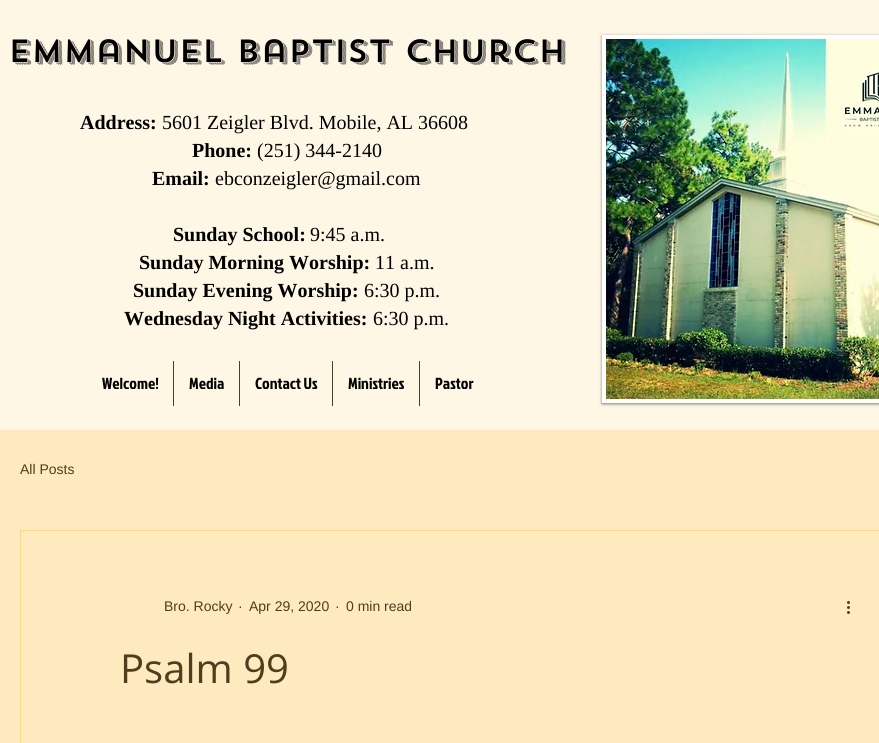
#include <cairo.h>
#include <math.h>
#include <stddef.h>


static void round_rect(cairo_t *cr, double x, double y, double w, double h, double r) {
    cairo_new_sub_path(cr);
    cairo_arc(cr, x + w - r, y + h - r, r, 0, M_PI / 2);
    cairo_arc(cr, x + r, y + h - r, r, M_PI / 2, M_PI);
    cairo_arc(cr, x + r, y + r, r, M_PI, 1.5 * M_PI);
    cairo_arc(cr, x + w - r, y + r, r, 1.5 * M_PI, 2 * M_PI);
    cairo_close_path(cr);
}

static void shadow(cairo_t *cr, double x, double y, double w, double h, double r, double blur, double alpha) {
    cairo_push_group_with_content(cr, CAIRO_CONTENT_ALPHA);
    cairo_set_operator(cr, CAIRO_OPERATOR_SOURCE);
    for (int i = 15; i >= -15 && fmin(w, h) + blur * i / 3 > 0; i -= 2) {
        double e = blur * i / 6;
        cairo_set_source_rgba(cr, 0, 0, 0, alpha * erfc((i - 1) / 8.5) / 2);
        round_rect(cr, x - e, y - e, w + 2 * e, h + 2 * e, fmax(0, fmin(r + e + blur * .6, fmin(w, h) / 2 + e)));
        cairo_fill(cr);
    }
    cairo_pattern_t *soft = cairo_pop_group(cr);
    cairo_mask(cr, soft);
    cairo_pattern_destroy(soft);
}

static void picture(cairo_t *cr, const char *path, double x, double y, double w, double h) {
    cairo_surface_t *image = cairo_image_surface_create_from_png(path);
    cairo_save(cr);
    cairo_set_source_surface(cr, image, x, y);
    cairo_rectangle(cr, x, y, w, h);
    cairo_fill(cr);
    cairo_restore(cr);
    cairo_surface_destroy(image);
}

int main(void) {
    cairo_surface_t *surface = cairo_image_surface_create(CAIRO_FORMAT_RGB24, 879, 743);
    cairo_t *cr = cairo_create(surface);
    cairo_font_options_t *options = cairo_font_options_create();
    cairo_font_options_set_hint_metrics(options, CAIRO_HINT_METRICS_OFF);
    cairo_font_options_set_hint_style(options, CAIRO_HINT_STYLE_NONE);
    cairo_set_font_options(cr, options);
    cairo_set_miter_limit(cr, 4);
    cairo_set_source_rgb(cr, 1, 0.914, 0.749);
    cairo_paint(cr);
    cairo_set_source_rgb(cr, 1, 0.965, 0.902);
    cairo_rectangle(cr, 0, 0, 879, 430);
    cairo_fill(cr);
    cairo_select_font_face(cr, "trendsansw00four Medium", CAIRO_FONT_SLANT_NORMAL, CAIRO_FONT_WEIGHT_NORMAL);
    cairo_set_font_size(cr, 32);
    cairo_set_source_rgb(cr, 0, 0, 0);
    cairo_move_to(cr, 8, 62);
    cairo_show_text(cr, "Emmanuel Baptist Church");
    cairo_set_source_rgb(cr, 0, 0, 0);
    shadow(cr, 602, 36, 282, 368, 0, 1.5, 0.5);
    cairo_set_source_rgb(cr, 1, 1, 1);
    cairo_rectangle(cr, 602, 35, 277, 368);
    cairo_fill(cr);
    picture(cr, "img1.png", 606, 39, 273, 360);
    cairo_select_font_face(cr, "Liberation Serif", CAIRO_FONT_SLANT_NORMAL, CAIRO_FONT_WEIGHT_BOLD);
    cairo_set_font_size(cr, 20);
    cairo_set_source_rgb(cr, 0, 0, 0);
    cairo_move_to(cr, 80, 129);
    cairo_show_text(cr, "Address:");
    cairo_select_font_face(cr, "Liberation Serif", CAIRO_FONT_SLANT_NORMAL, CAIRO_FONT_WEIGHT_NORMAL);
    cairo_move_to(cr, 162, 129);
    cairo_show_text(cr, "5601 Zeigler Blvd. Mobile, AL 36608");
    cairo_select_font_face(cr, "Liberation Serif", CAIRO_FONT_SLANT_NORMAL, CAIRO_FONT_WEIGHT_BOLD);
    cairo_move_to(cr, 192, 157);
    cairo_show_text(cr, "Phone:");
    cairo_select_font_face(cr, "Liberation Serif", CAIRO_FONT_SLANT_NORMAL, CAIRO_FONT_WEIGHT_NORMAL);
    cairo_move_to(cr, 257, 157);
    cairo_show_text(cr, "(251) 344-2140");
    cairo_select_font_face(cr, "Liberation Serif", CAIRO_FONT_SLANT_NORMAL, CAIRO_FONT_WEIGHT_BOLD);
    cairo_move_to(cr, 152, 185);
    cairo_show_text(cr, "Email:");
    cairo_select_font_face(cr, "Liberation Serif", CAIRO_FONT_SLANT_NORMAL, CAIRO_FONT_WEIGHT_NORMAL);
    cairo_move_to(cr, 215, 185);
    cairo_show_text(cr, "ebconzeigler@gmail.com");
    cairo_select_font_face(cr, "Liberation Serif", CAIRO_FONT_SLANT_NORMAL, CAIRO_FONT_WEIGHT_BOLD);
    cairo_move_to(cr, 173, 241);
    cairo_show_text(cr, "Sunday School:");
    cairo_select_font_face(cr, "Liberation Serif", CAIRO_FONT_SLANT_NORMAL, CAIRO_FONT_WEIGHT_NORMAL);
    cairo_move_to(cr, 310, 241);
    cairo_show_text(cr, "9:45 a.m.");
    cairo_select_font_face(cr, "Liberation Serif", CAIRO_FONT_SLANT_NORMAL, CAIRO_FONT_WEIGHT_BOLD);
    cairo_move_to(cr, 139, 269);
    cairo_show_text(cr, "Sunday Morning Worship:");
    cairo_select_font_face(cr, "Liberation Serif", CAIRO_FONT_SLANT_NORMAL, CAIRO_FONT_WEIGHT_NORMAL);
    cairo_move_to(cr, 375, 269);
    cairo_show_text(cr, "11 a.m.");
    cairo_select_font_face(cr, "Liberation Serif", CAIRO_FONT_SLANT_NORMAL, CAIRO_FONT_WEIGHT_BOLD);
    cairo_move_to(cr, 133, 297);
    cairo_show_text(cr, "Sunday Evening Worship:");
    cairo_select_font_face(cr, "Liberation Serif", CAIRO_FONT_SLANT_NORMAL, CAIRO_FONT_WEIGHT_NORMAL);
    cairo_move_to(cr, 364, 297);
    cairo_show_text(cr, "6:30 p.m.");
    cairo_select_font_face(cr, "Liberation Serif", CAIRO_FONT_SLANT_NORMAL, CAIRO_FONT_WEIGHT_BOLD);
    cairo_move_to(cr, 124, 325);
    cairo_show_text(cr, "Wednesday Night Activities:");
    cairo_select_font_face(cr, "Liberation Serif", CAIRO_FONT_SLANT_NORMAL, CAIRO_FONT_WEIGHT_NORMAL);
    cairo_move_to(cr, 373, 325);
    cairo_show_text(cr, "6:30 p.m.");
    cairo_select_font_face(cr, "Jockey One", CAIRO_FONT_SLANT_NORMAL, CAIRO_FONT_WEIGHT_NORMAL);
    cairo_set_font_size(cr, 16);
    cairo_move_to(cr, 102, 389);
    cairo_show_text(cr, "Welcome!");
    cairo_set_source_rgb(cr, 0.306, 0.239, 0.118);
    cairo_rectangle(cr, 173, 361, 1, 45);
    cairo_fill(cr);
    cairo_set_source_rgb(cr, 0, 0, 0);
    cairo_move_to(cr, 189, 389);
    cairo_show_text(cr, "Media");
    cairo_set_source_rgb(cr, 0.306, 0.239, 0.118);
    cairo_rectangle(cr, 239, 361, 1, 45);
    cairo_fill(cr);
    cairo_set_source_rgb(cr, 0, 0, 0);
    cairo_move_to(cr, 255, 389);
    cairo_show_text(cr, "Contact Us");
    cairo_set_source_rgb(cr, 0.306, 0.239, 0.118);
    cairo_rectangle(cr, 332, 361, 1, 45);
    cairo_fill(cr);
    cairo_set_source_rgb(cr, 0, 0, 0);
    cairo_move_to(cr, 348, 389);
    cairo_show_text(cr, "Ministries");
    cairo_set_source_rgb(cr, 0.306, 0.239, 0.118);
    cairo_rectangle(cr, 419, 361, 1, 45);
    cairo_fill(cr);
    cairo_set_source_rgb(cr, 0, 0, 0);
    cairo_move_to(cr, 435, 389);
    cairo_show_text(cr, "Pastor");
    cairo_select_font_face(cr, "Liberation Sans", CAIRO_FONT_SLANT_NORMAL, CAIRO_FONT_WEIGHT_NORMAL);
    cairo_set_font_size(cr, 14);
    cairo_set_source_rgb(cr, 0.306, 0.239, 0.118);
    cairo_move_to(cr, 20, 474);
    cairo_show_text(cr, "All Posts");
    cairo_rectangle(cr, 20.5, 530.5, 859, 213);
    cairo_set_source_rgb(cr, 1, 0.851, 0.447);
    cairo_set_line_width(cr, 1);
    cairo_stroke(cr);
    cairo_set_source_rgb(cr, 0.306, 0.239, 0.118);
    cairo_move_to(cr, 164, 611);
    cairo_show_text(cr, "Bro. Rocky");
    cairo_move_to(cr, 238, 611);
    cairo_show_text(cr, "·");
    cairo_move_to(cr, 249, 611);
    cairo_show_text(cr, "Apr 29, 2020");
    cairo_move_to(cr, 335, 611);
    cairo_show_text(cr, "·");
    cairo_move_to(cr, 346, 611);
    cairo_show_text(cr, "0 min read");
    picture(cr, "img2.png", 847, 601, 3, 13);
    cairo_select_font_face(cr, "Open Sans", CAIRO_FONT_SLANT_NORMAL, CAIRO_FONT_WEIGHT_NORMAL);
    cairo_set_font_size(cr, 40);
    cairo_move_to(cr, 120, 683);
    cairo_show_text(cr, "Psalm 99");
    cairo_surface_write_to_png(surface, "page.png");
    cairo_font_options_destroy(options);
    cairo_destroy(cr);
    cairo_surface_destroy(surface);
    return 0;
}
